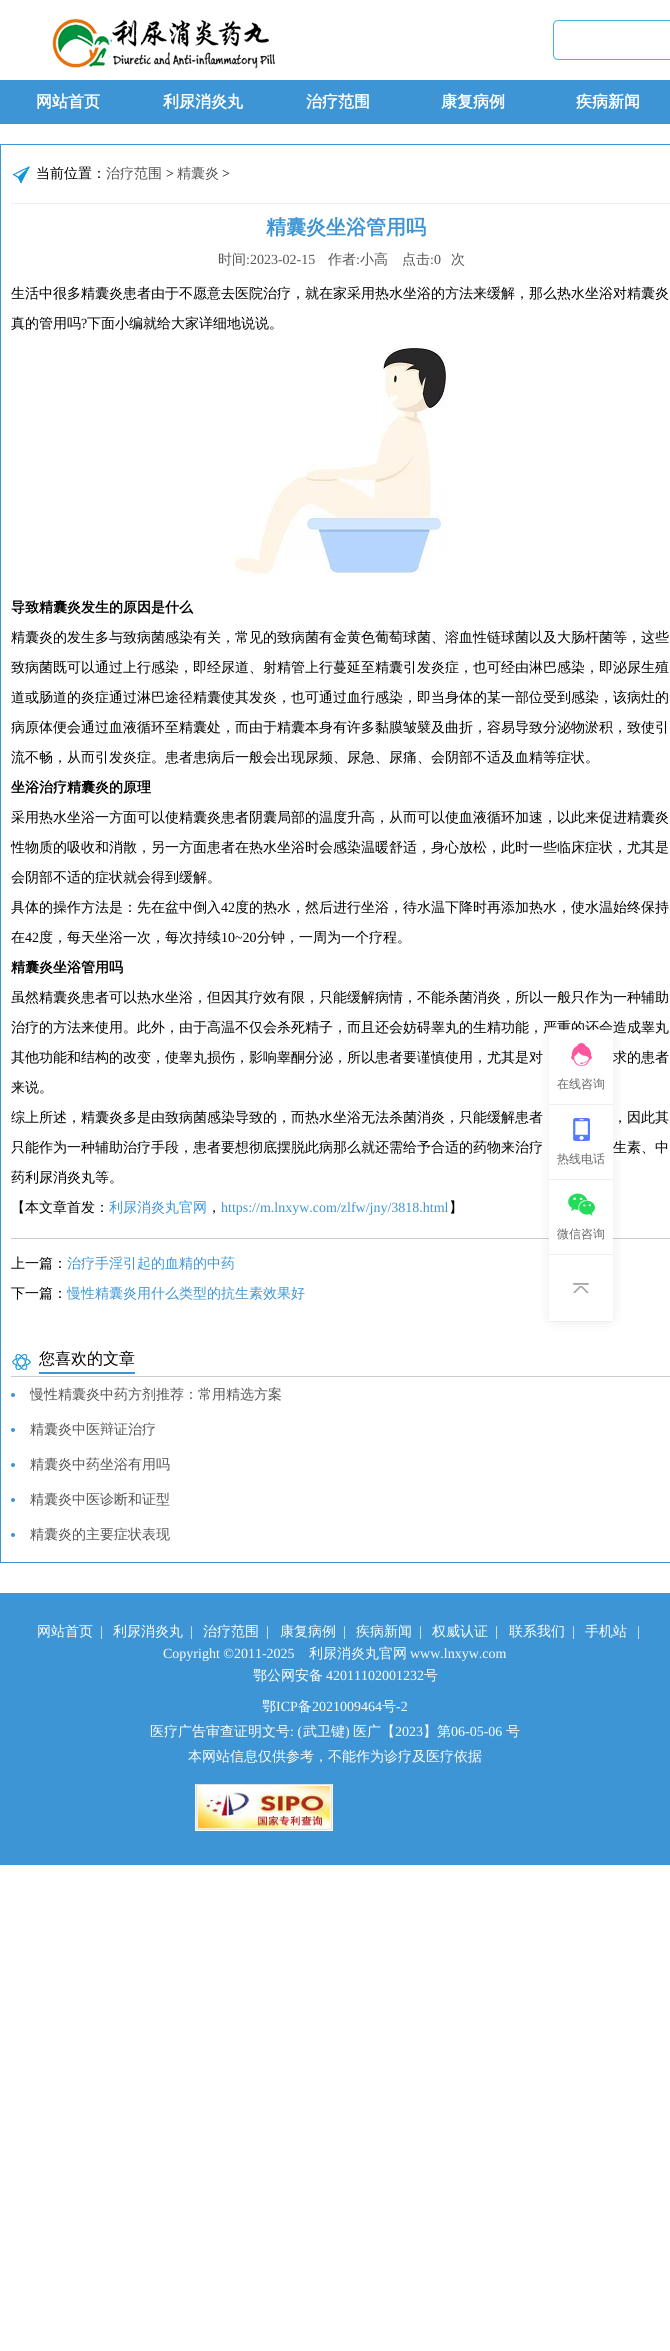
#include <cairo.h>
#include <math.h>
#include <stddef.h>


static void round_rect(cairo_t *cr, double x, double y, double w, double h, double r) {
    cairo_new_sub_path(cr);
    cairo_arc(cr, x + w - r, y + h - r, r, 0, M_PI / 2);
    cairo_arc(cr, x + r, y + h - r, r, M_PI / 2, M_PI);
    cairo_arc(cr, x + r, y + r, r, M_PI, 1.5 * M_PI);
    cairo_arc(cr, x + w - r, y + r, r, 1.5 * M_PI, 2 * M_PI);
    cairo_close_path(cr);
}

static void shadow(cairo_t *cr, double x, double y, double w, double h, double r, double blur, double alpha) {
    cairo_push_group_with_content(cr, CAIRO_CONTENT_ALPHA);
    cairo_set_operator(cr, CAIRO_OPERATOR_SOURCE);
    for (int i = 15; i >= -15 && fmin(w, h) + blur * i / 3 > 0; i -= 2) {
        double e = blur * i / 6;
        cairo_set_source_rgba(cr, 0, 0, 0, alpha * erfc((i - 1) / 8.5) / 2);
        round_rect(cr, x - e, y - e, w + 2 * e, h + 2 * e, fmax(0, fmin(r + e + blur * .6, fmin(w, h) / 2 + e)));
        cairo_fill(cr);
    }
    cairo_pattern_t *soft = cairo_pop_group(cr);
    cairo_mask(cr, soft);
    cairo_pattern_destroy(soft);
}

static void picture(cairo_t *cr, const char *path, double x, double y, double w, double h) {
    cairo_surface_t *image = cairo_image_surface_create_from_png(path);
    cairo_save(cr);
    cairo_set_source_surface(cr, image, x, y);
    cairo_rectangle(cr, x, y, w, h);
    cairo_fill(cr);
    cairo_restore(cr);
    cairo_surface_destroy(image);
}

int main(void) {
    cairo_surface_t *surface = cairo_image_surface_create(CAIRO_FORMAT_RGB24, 670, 2351);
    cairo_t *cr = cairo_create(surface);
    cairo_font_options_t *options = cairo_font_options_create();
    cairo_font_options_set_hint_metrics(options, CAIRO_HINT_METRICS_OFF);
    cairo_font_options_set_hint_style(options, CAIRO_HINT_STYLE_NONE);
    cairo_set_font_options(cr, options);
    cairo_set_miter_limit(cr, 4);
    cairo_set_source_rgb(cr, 1, 1, 1);
    cairo_paint(cr);
    picture(cr, "img1.png", 52, 18, 223, 51);
    picture(cr, "img2.png", 553, 20, 117, 40);
    cairo_set_source_rgb(cr, 0.239, 0.584, 0.835);
    cairo_rectangle(cr, 0, 80, 670, 44);
    cairo_fill(cr);
    cairo_select_font_face(cr, "WenQuanYi Zen Hei", CAIRO_FONT_SLANT_NORMAL, CAIRO_FONT_WEIGHT_BOLD);
    cairo_set_font_size(cr, 16);
    cairo_set_source_rgb(cr, 1, 1, 1);
    cairo_move_to(cr, 36, 107);
    cairo_show_text(cr, "网站首页");
    cairo_move_to(cr, 163, 107);
    cairo_show_text(cr, "利尿消炎丸");
    cairo_move_to(cr, 306, 107);
    cairo_show_text(cr, "治疗范围");
    cairo_move_to(cr, 441, 107);
    cairo_show_text(cr, "康复病例");
    cairo_move_to(cr, 576, 107);
    cairo_show_text(cr, "疾病新闻");
    cairo_rectangle(cr, 0.5, 144.5, 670, 1418);
    cairo_set_source_rgb(cr, 0.239, 0.584, 0.835);
    cairo_set_line_width(cr, 1);
    cairo_stroke(cr);
    cairo_set_source_rgb(cr, 0.808, 0.808, 0.808);
    cairo_rectangle(cr, 11, 1238, 659, 1);
    cairo_fill(cr);
    cairo_set_source_rgb(cr, 0, 0, 0);
    shadow(cr, 549, 1030, 64, 292, 6, 6.5, 0.08);
    cairo_select_font_face(cr, "WenQuanYi Zen Hei Medium", CAIRO_FONT_SLANT_NORMAL, CAIRO_FONT_WEIGHT_NORMAL);
    cairo_set_font_size(cr, 14);
    cairo_set_source_rgb(cr, 0, 0, 0);
    cairo_move_to(cr, 11, 1032);
    cairo_show_text(cr, "治疗的方法来使用。此外，由于高温不仅会杀死精子，而且还会妨碍睾丸的生精功能，严重的还会造成睾丸");
    cairo_set_source_rgb(cr, 1, 1, 1);
    cairo_rectangle(cr, 549, 1030, 64, 74);
    cairo_fill(cr);
    cairo_set_source_rgb(cr, 0.933, 0.933, 0.933);
    cairo_rectangle(cr, 549, 1104, 64, 1);
    cairo_fill(cr);
    picture(cr, "img3.png", 571, 1043, 21, 23);
    cairo_set_font_size(cr, 12);
    cairo_set_source_rgb(cr, 0.4, 0.4, 0.4);
    cairo_move_to(cr, 557, 1088);
    cairo_show_text(cr, "在线咨询");
    cairo_set_source_rgb(cr, 1, 1, 1);
    cairo_rectangle(cr, 549, 1105, 64, 74);
    cairo_fill(cr);
    cairo_set_source_rgb(cr, 0.933, 0.933, 0.933);
    cairo_rectangle(cr, 549, 1179, 64, 1);
    cairo_fill(cr);
    picture(cr, "img4.png", 573, 1118, 17, 23);
    cairo_set_source_rgb(cr, 0.4, 0.4, 0.4);
    cairo_move_to(cr, 557, 1163);
    cairo_show_text(cr, "热线电话");
    cairo_set_source_rgb(cr, 1, 1, 1);
    cairo_rectangle(cr, 549, 1180, 64, 74);
    cairo_fill(cr);
    cairo_set_source_rgb(cr, 0.933, 0.933, 0.933);
    cairo_rectangle(cr, 549, 1254, 64, 1);
    cairo_fill(cr);
    picture(cr, "img5.png", 568, 1193, 27, 23);
    cairo_set_source_rgb(cr, 0.4, 0.4, 0.4);
    cairo_move_to(cr, 557, 1238);
    cairo_show_text(cr, "微信咨询");
    cairo_set_source_rgb(cr, 1, 1, 1);
    cairo_rectangle(cr, 549, 1255, 64, 66);
    cairo_fill(cr);
    cairo_set_source_rgb(cr, 0.933, 0.933, 0.933);
    cairo_rectangle(cr, 549, 1321, 64, 1);
    cairo_fill(cr);
    picture(cr, "img6.png", 573, 1283, 16, 10);
    picture(cr, "img7.png", 12, 166, 18, 18);
    cairo_rectangle(cr, 11, 203, 659, 1);
    cairo_fill(cr);
    cairo_set_font_size(cr, 14);
    cairo_set_source_rgb(cr, 0, 0, 0);
    cairo_move_to(cr, 36, 178);
    cairo_show_text(cr, "当前位置：");
    cairo_set_source_rgb(cr, 0.333, 0.333, 0.333);
    cairo_move_to(cr, 106, 178);
    cairo_show_text(cr, "治疗范围");
    cairo_select_font_face(cr, "Liberation Serif", CAIRO_FONT_SLANT_NORMAL, CAIRO_FONT_WEIGHT_NORMAL);
    cairo_set_source_rgb(cr, 0, 0, 0);
    cairo_move_to(cr, 166, 178);
    cairo_show_text(cr, ">");
    cairo_select_font_face(cr, "WenQuanYi Zen Hei Medium", CAIRO_FONT_SLANT_NORMAL, CAIRO_FONT_WEIGHT_NORMAL);
    cairo_set_source_rgb(cr, 0.333, 0.333, 0.333);
    cairo_move_to(cr, 177, 178);
    cairo_show_text(cr, "精囊炎");
    cairo_select_font_face(cr, "Liberation Serif", CAIRO_FONT_SLANT_NORMAL, CAIRO_FONT_WEIGHT_NORMAL);
    cairo_set_source_rgb(cr, 0, 0, 0);
    cairo_move_to(cr, 222, 178);
    cairo_show_text(cr, ">");
    cairo_select_font_face(cr, "WenQuanYi Zen Hei", CAIRO_FONT_SLANT_NORMAL, CAIRO_FONT_WEIGHT_BOLD);
    cairo_set_font_size(cr, 20);
    cairo_set_source_rgb(cr, 0.239, 0.584, 0.835);
    cairo_move_to(cr, 266, 234);
    cairo_show_text(cr, "精囊炎坐浴管用吗");
    cairo_select_font_face(cr, "WenQuanYi Zen Hei Medium", CAIRO_FONT_SLANT_NORMAL, CAIRO_FONT_WEIGHT_NORMAL);
    cairo_set_font_size(cr, 14);
    cairo_set_source_rgb(cr, 0.333, 0.333, 0.333);
    cairo_move_to(cr, 218, 264);
    cairo_show_text(cr, "时间");
    cairo_select_font_face(cr, "Liberation Serif", CAIRO_FONT_SLANT_NORMAL, CAIRO_FONT_WEIGHT_NORMAL);
    cairo_move_to(cr, 246, 264);
    cairo_show_text(cr, ":2023-02-15");
    cairo_select_font_face(cr, "WenQuanYi Zen Hei Medium", CAIRO_FONT_SLANT_NORMAL, CAIRO_FONT_WEIGHT_NORMAL);
    cairo_move_to(cr, 328, 264);
    cairo_show_text(cr, "作者");
    cairo_select_font_face(cr, "Liberation Serif", CAIRO_FONT_SLANT_NORMAL, CAIRO_FONT_WEIGHT_NORMAL);
    cairo_move_to(cr, 356, 264);
    cairo_show_text(cr, ":");
    cairo_select_font_face(cr, "WenQuanYi Zen Hei Medium", CAIRO_FONT_SLANT_NORMAL, CAIRO_FONT_WEIGHT_NORMAL);
    cairo_move_to(cr, 360, 264);
    cairo_show_text(cr, "小高");
    cairo_move_to(cr, 402, 264);
    cairo_show_text(cr, "点击");
    cairo_select_font_face(cr, "Liberation Serif", CAIRO_FONT_SLANT_NORMAL, CAIRO_FONT_WEIGHT_NORMAL);
    cairo_move_to(cr, 430, 264);
    cairo_show_text(cr, ":0");
    cairo_select_font_face(cr, "WenQuanYi Zen Hei Medium", CAIRO_FONT_SLANT_NORMAL, CAIRO_FONT_WEIGHT_NORMAL);
    cairo_move_to(cr, 451, 264);
    cairo_show_text(cr, "次");
    cairo_set_source_rgb(cr, 0, 0, 0);
    cairo_move_to(cr, 11, 298);
    cairo_show_text(cr, "生活中很多精囊炎患者由于不愿意去医院治疗，就在家采用热水坐浴的方法来缓解，那么热水坐浴对精囊炎");
    cairo_move_to(cr, 11, 328);
    cairo_show_text(cr, "真的管用吗");
    cairo_select_font_face(cr, "Liberation Serif", CAIRO_FONT_SLANT_NORMAL, CAIRO_FONT_WEIGHT_NORMAL);
    cairo_move_to(cr, 81, 328);
    cairo_show_text(cr, "?");
    cairo_select_font_face(cr, "WenQuanYi Zen Hei Medium", CAIRO_FONT_SLANT_NORMAL, CAIRO_FONT_WEIGHT_NORMAL);
    cairo_move_to(cr, 87, 328);
    cairo_show_text(cr, "下面小编就给大家详细地说说。");
    picture(cr, "img8.png", 234, 348, 214, 228);
    cairo_select_font_face(cr, "WenQuanYi Zen Hei", CAIRO_FONT_SLANT_NORMAL, CAIRO_FONT_WEIGHT_BOLD);
    cairo_move_to(cr, 11, 612);
    cairo_show_text(cr, "导致精囊炎发生的原因是什么");
    cairo_select_font_face(cr, "WenQuanYi Zen Hei Medium", CAIRO_FONT_SLANT_NORMAL, CAIRO_FONT_WEIGHT_NORMAL);
    cairo_move_to(cr, 11, 642);
    cairo_show_text(cr, "精囊炎的发生多与致病菌感染有关，常见的致病菌有金黄色葡萄球菌、溶血性链球菌以及大肠杆菌等，这些");
    cairo_move_to(cr, 11, 672);
    cairo_show_text(cr, "致病菌既可以通过上行感染，即经尿道、射精管上行蔓延至精囊引发炎症，也可经由淋巴感染，即泌尿生殖");
    cairo_move_to(cr, 11, 702);
    cairo_show_text(cr, "道或肠道的炎症通过淋巴途径精囊使其发炎，也可通过血行感染，即当身体的某一部位受到感染，该病灶的");
    cairo_move_to(cr, 11, 732);
    cairo_show_text(cr, "病原体便会通过血液循环至精囊处，而由于精囊本身有许多黏膜皱襞及曲折，容易导致分泌物淤积，致使引");
    cairo_move_to(cr, 11, 762);
    cairo_show_text(cr, "流不畅，从而引发炎症。患者患病后一般会出现尿频、尿急、尿痛、会阴部不适及血精等症状。");
    cairo_select_font_face(cr, "WenQuanYi Zen Hei", CAIRO_FONT_SLANT_NORMAL, CAIRO_FONT_WEIGHT_BOLD);
    cairo_move_to(cr, 11, 792);
    cairo_show_text(cr, "坐浴治疗精囊炎的原理");
    cairo_select_font_face(cr, "WenQuanYi Zen Hei Medium", CAIRO_FONT_SLANT_NORMAL, CAIRO_FONT_WEIGHT_NORMAL);
    cairo_move_to(cr, 11, 822);
    cairo_show_text(cr, "采用热水坐浴一方面可以使精囊炎患者阴囊局部的温度升高，从而可以使血液循环加速，以此来促进精囊炎");
    cairo_move_to(cr, 11, 852);
    cairo_show_text(cr, "性物质的吸收和消散，另一方面患者在热水坐浴时会感染温暖舒适，身心放松，此时一些临床症状，尤其是");
    cairo_move_to(cr, 11, 882);
    cairo_show_text(cr, "会阴部不适的症状就会得到缓解。");
    cairo_move_to(cr, 11, 912);
    cairo_show_text(cr, "具体的操作方法是：先在盆中倒入");
    cairo_select_font_face(cr, "Liberation Serif", CAIRO_FONT_SLANT_NORMAL, CAIRO_FONT_WEIGHT_NORMAL);
    cairo_move_to(cr, 221, 912);
    cairo_show_text(cr, "42");
    cairo_select_font_face(cr, "WenQuanYi Zen Hei Medium", CAIRO_FONT_SLANT_NORMAL, CAIRO_FONT_WEIGHT_NORMAL);
    cairo_move_to(cr, 235, 912);
    cairo_show_text(cr, "度的热水，然后进行坐浴，待水温下降时再添加热水，使水温始终保持");
    cairo_move_to(cr, 11, 942);
    cairo_show_text(cr, "在");
    cairo_select_font_face(cr, "Liberation Serif", CAIRO_FONT_SLANT_NORMAL, CAIRO_FONT_WEIGHT_NORMAL);
    cairo_move_to(cr, 25, 942);
    cairo_show_text(cr, "42");
    cairo_select_font_face(cr, "WenQuanYi Zen Hei Medium", CAIRO_FONT_SLANT_NORMAL, CAIRO_FONT_WEIGHT_NORMAL);
    cairo_move_to(cr, 39, 942);
    cairo_show_text(cr, "度，每天坐浴一次，每次持续");
    cairo_select_font_face(cr, "Liberation Serif", CAIRO_FONT_SLANT_NORMAL, CAIRO_FONT_WEIGHT_NORMAL);
    cairo_move_to(cr, 221, 942);
    cairo_show_text(cr, "10~20");
    cairo_select_font_face(cr, "WenQuanYi Zen Hei Medium", CAIRO_FONT_SLANT_NORMAL, CAIRO_FONT_WEIGHT_NORMAL);
    cairo_move_to(cr, 257, 942);
    cairo_show_text(cr, "分钟，一周为一个疗程。");
    cairo_select_font_face(cr, "WenQuanYi Zen Hei", CAIRO_FONT_SLANT_NORMAL, CAIRO_FONT_WEIGHT_BOLD);
    cairo_move_to(cr, 11, 972);
    cairo_show_text(cr, "精囊炎坐浴管用吗");
    cairo_select_font_face(cr, "WenQuanYi Zen Hei Medium", CAIRO_FONT_SLANT_NORMAL, CAIRO_FONT_WEIGHT_NORMAL);
    cairo_move_to(cr, 11, 1002);
    cairo_show_text(cr, "虽然精囊炎患者可以热水坐浴，但因其疗效有限，只能缓解病情，不能杀菌消炎，所以一般只作为一种辅助");
    cairo_move_to(cr, 11, 1062);
    cairo_show_text(cr, "其他功能和结构的改变，使睾丸损伤，影响睾酮分泌，所以患者要谨慎使用，尤其是对");
    cairo_move_to(cr, 613, 1062);
    cairo_show_text(cr, "求的患者");
    cairo_move_to(cr, 11, 1092);
    cairo_show_text(cr, "来说。");
    cairo_move_to(cr, 11, 1122);
    cairo_show_text(cr, "综上所述，精囊炎多是由致病菌感染导致的，而热水坐浴无法杀菌消炎，只能缓解患者");
    cairo_move_to(cr, 613, 1122);
    cairo_show_text(cr, "，因此其");
    cairo_move_to(cr, 11, 1152);
    cairo_show_text(cr, "只能作为一种辅助治疗手段，患者要想彻底摆脱此病那么就还需给予合适的药物来治疗");
    cairo_move_to(cr, 613, 1152);
    cairo_show_text(cr, "生素、中");
    cairo_move_to(cr, 11, 1182);
    cairo_show_text(cr, "药利尿消炎丸等。");
    cairo_move_to(cr, 11, 1212);
    cairo_show_text(cr, "【本文章首发：");
    cairo_set_source_rgb(cr, 0.239, 0.584, 0.835);
    cairo_move_to(cr, 109, 1212);
    cairo_show_text(cr, "利尿消炎丸官网");
    cairo_set_source_rgb(cr, 0, 0, 0);
    cairo_move_to(cr, 207, 1212);
    cairo_show_text(cr, "，");
    cairo_select_font_face(cr, "Liberation Serif", CAIRO_FONT_SLANT_NORMAL, CAIRO_FONT_WEIGHT_NORMAL);
    cairo_set_source_rgb(cr, 0.239, 0.584, 0.835);
    cairo_move_to(cr, 221, 1212);
    cairo_show_text(cr, "https://m.lnxyw.com/zlfw/jny/3818.html");
    cairo_select_font_face(cr, "WenQuanYi Zen Hei Medium", CAIRO_FONT_SLANT_NORMAL, CAIRO_FONT_WEIGHT_NORMAL);
    cairo_set_source_rgb(cr, 0, 0, 0);
    cairo_move_to(cr, 449, 1212);
    cairo_show_text(cr, "】");
    cairo_move_to(cr, 11, 1268);
    cairo_show_text(cr, "上一篇：");
    cairo_set_source_rgb(cr, 0.239, 0.584, 0.835);
    cairo_move_to(cr, 67, 1268);
    cairo_show_text(cr, "治疗手淫引起的血精的中药");
    cairo_set_source_rgb(cr, 0, 0, 0);
    cairo_move_to(cr, 11, 1298);
    cairo_show_text(cr, "下一篇：");
    cairo_set_source_rgb(cr, 0.239, 0.584, 0.835);
    cairo_move_to(cr, 67, 1298);
    cairo_show_text(cr, "慢性精囊炎用什么类型的抗生素效果好");
    picture(cr, "img9.png", 12, 1354, 19, 16);
    cairo_set_source_rgb(cr, 0.8, 0.8, 0.8);
    cairo_rectangle(cr, 11, 1376, 659, 1);
    cairo_fill(cr);
    cairo_set_font_size(cr, 16);
    cairo_set_source_rgb(cr, 0, 0, 0);
    cairo_move_to(cr, 39, 1364);
    cairo_show_text(cr, "您喜欢的文章");
    cairo_set_source_rgb(cr, 0.239, 0.584, 0.835);
    cairo_rectangle(cr, 39, 1372, 96, 2);
    cairo_fill(cr);
    cairo_arc(cr, 13, 1395, 2, 0, 2 * M_PI);
    cairo_fill(cr);
    cairo_set_font_size(cr, 14);
    cairo_set_source_rgb(cr, 0.333, 0.333, 0.333);
    cairo_move_to(cr, 30, 1399);
    cairo_show_text(cr, "慢性精囊炎中药方剂推荐：常用精选方案");
    cairo_set_source_rgb(cr, 0.239, 0.584, 0.835);
    cairo_new_path(cr);
    cairo_arc(cr, 13, 1430, 2, 0, 2 * M_PI);
    cairo_fill(cr);
    cairo_set_source_rgb(cr, 0.333, 0.333, 0.333);
    cairo_move_to(cr, 30, 1434);
    cairo_show_text(cr, "精囊炎中医辩证治疗");
    cairo_set_source_rgb(cr, 0.239, 0.584, 0.835);
    cairo_new_path(cr);
    cairo_arc(cr, 13, 1465, 2, 0, 2 * M_PI);
    cairo_fill(cr);
    cairo_set_source_rgb(cr, 0.333, 0.333, 0.333);
    cairo_move_to(cr, 30, 1469);
    cairo_show_text(cr, "精囊炎中药坐浴有用吗");
    cairo_set_source_rgb(cr, 0.239, 0.584, 0.835);
    cairo_new_path(cr);
    cairo_arc(cr, 13, 1500, 2, 0, 2 * M_PI);
    cairo_fill(cr);
    cairo_set_source_rgb(cr, 0.333, 0.333, 0.333);
    cairo_move_to(cr, 30, 1504);
    cairo_show_text(cr, "精囊炎中医诊断和证型");
    cairo_set_source_rgb(cr, 0.239, 0.584, 0.835);
    cairo_new_path(cr);
    cairo_arc(cr, 13, 1535, 2, 0, 2 * M_PI);
    cairo_fill(cr);
    cairo_set_source_rgb(cr, 0.333, 0.333, 0.333);
    cairo_move_to(cr, 30, 1539);
    cairo_show_text(cr, "精囊炎的主要症状表现");
    cairo_set_source_rgb(cr, 0.239, 0.584, 0.835);
    cairo_rectangle(cr, 0, 1593, 670, 272);
    cairo_fill(cr);
    cairo_set_source_rgb(cr, 1, 1, 1);
    cairo_move_to(cr, 37, 1636);
    cairo_show_text(cr, "网站首页");
    cairo_select_font_face(cr, "Liberation Serif", CAIRO_FONT_SLANT_NORMAL, CAIRO_FONT_WEIGHT_NORMAL);
    cairo_move_to(cr, 100, 1636);
    cairo_show_text(cr, "|");
    cairo_select_font_face(cr, "WenQuanYi Zen Hei Medium", CAIRO_FONT_SLANT_NORMAL, CAIRO_FONT_WEIGHT_NORMAL);
    cairo_move_to(cr, 113, 1636);
    cairo_show_text(cr, "利尿消炎丸");
    cairo_select_font_face(cr, "Liberation Serif", CAIRO_FONT_SLANT_NORMAL, CAIRO_FONT_WEIGHT_NORMAL);
    cairo_move_to(cr, 190, 1636);
    cairo_show_text(cr, "|");
    cairo_select_font_face(cr, "WenQuanYi Zen Hei Medium", CAIRO_FONT_SLANT_NORMAL, CAIRO_FONT_WEIGHT_NORMAL);
    cairo_move_to(cr, 203, 1636);
    cairo_show_text(cr, "治疗范围");
    cairo_select_font_face(cr, "Liberation Serif", CAIRO_FONT_SLANT_NORMAL, CAIRO_FONT_WEIGHT_NORMAL);
    cairo_move_to(cr, 266, 1636);
    cairo_show_text(cr, "|");
    cairo_select_font_face(cr, "WenQuanYi Zen Hei Medium", CAIRO_FONT_SLANT_NORMAL, CAIRO_FONT_WEIGHT_NORMAL);
    cairo_move_to(cr, 280, 1636);
    cairo_show_text(cr, "康复病例");
    cairo_select_font_face(cr, "Liberation Serif", CAIRO_FONT_SLANT_NORMAL, CAIRO_FONT_WEIGHT_NORMAL);
    cairo_move_to(cr, 343, 1636);
    cairo_show_text(cr, "|");
    cairo_select_font_face(cr, "WenQuanYi Zen Hei Medium", CAIRO_FONT_SLANT_NORMAL, CAIRO_FONT_WEIGHT_NORMAL);
    cairo_move_to(cr, 356, 1636);
    cairo_show_text(cr, "疾病新闻");
    cairo_select_font_face(cr, "Liberation Serif", CAIRO_FONT_SLANT_NORMAL, CAIRO_FONT_WEIGHT_NORMAL);
    cairo_move_to(cr, 419, 1636);
    cairo_show_text(cr, "|");
    cairo_select_font_face(cr, "WenQuanYi Zen Hei Medium", CAIRO_FONT_SLANT_NORMAL, CAIRO_FONT_WEIGHT_NORMAL);
    cairo_move_to(cr, 432, 1636);
    cairo_show_text(cr, "权威认证");
    cairo_select_font_face(cr, "Liberation Serif", CAIRO_FONT_SLANT_NORMAL, CAIRO_FONT_WEIGHT_NORMAL);
    cairo_move_to(cr, 495, 1636);
    cairo_show_text(cr, "|");
    cairo_select_font_face(cr, "WenQuanYi Zen Hei Medium", CAIRO_FONT_SLANT_NORMAL, CAIRO_FONT_WEIGHT_NORMAL);
    cairo_move_to(cr, 509, 1636);
    cairo_show_text(cr, "联系我们");
    cairo_select_font_face(cr, "Liberation Serif", CAIRO_FONT_SLANT_NORMAL, CAIRO_FONT_WEIGHT_NORMAL);
    cairo_move_to(cr, 572, 1636);
    cairo_show_text(cr, "|");
    cairo_select_font_face(cr, "WenQuanYi Zen Hei Medium", CAIRO_FONT_SLANT_NORMAL, CAIRO_FONT_WEIGHT_NORMAL);
    cairo_move_to(cr, 585, 1636);
    cairo_show_text(cr, "手机站");
    cairo_select_font_face(cr, "Liberation Serif", CAIRO_FONT_SLANT_NORMAL, CAIRO_FONT_WEIGHT_NORMAL);
    cairo_move_to(cr, 637, 1636);
    cairo_show_text(cr, "|");
    cairo_move_to(cr, 163, 1658);
    cairo_show_text(cr, "Copyright ©2011-2025");
    cairo_select_font_face(cr, "WenQuanYi Zen Hei Medium", CAIRO_FONT_SLANT_NORMAL, CAIRO_FONT_WEIGHT_NORMAL);
    cairo_move_to(cr, 309, 1658);
    cairo_show_text(cr, "利尿消炎丸官网");
    cairo_select_font_face(cr, "Liberation Serif", CAIRO_FONT_SLANT_NORMAL, CAIRO_FONT_WEIGHT_NORMAL);
    cairo_move_to(cr, 410, 1658);
    cairo_show_text(cr, "www.lnxyw.com");
    cairo_select_font_face(cr, "WenQuanYi Zen Hei Medium", CAIRO_FONT_SLANT_NORMAL, CAIRO_FONT_WEIGHT_NORMAL);
    cairo_move_to(cr, 253, 1680);
    cairo_show_text(cr, "鄂公网安备");
    cairo_select_font_face(cr, "Liberation Serif", CAIRO_FONT_SLANT_NORMAL, CAIRO_FONT_WEIGHT_NORMAL);
    cairo_move_to(cr, 326, 1680);
    cairo_show_text(cr, "42011102001232");
    cairo_select_font_face(cr, "WenQuanYi Zen Hei Medium", CAIRO_FONT_SLANT_NORMAL, CAIRO_FONT_WEIGHT_NORMAL);
    cairo_move_to(cr, 424, 1680);
    cairo_show_text(cr, "号");
    cairo_move_to(cr, 262, 1711);
    cairo_show_text(cr, "鄂");
    cairo_select_font_face(cr, "Liberation Serif", CAIRO_FONT_SLANT_NORMAL, CAIRO_FONT_WEIGHT_NORMAL);
    cairo_move_to(cr, 276, 1711);
    cairo_show_text(cr, "ICP");
    cairo_select_font_face(cr, "WenQuanYi Zen Hei Medium", CAIRO_FONT_SLANT_NORMAL, CAIRO_FONT_WEIGHT_NORMAL);
    cairo_move_to(cr, 298, 1711);
    cairo_show_text(cr, "备");
    cairo_select_font_face(cr, "Liberation Serif", CAIRO_FONT_SLANT_NORMAL, CAIRO_FONT_WEIGHT_NORMAL);
    cairo_move_to(cr, 312, 1711);
    cairo_show_text(cr, "2021009464");
    cairo_select_font_face(cr, "WenQuanYi Zen Hei Medium", CAIRO_FONT_SLANT_NORMAL, CAIRO_FONT_WEIGHT_NORMAL);
    cairo_move_to(cr, 382, 1711);
    cairo_show_text(cr, "号");
    cairo_select_font_face(cr, "Liberation Serif", CAIRO_FONT_SLANT_NORMAL, CAIRO_FONT_WEIGHT_NORMAL);
    cairo_move_to(cr, 396, 1711);
    cairo_show_text(cr, "-2");
    cairo_select_font_face(cr, "WenQuanYi Zen Hei Medium", CAIRO_FONT_SLANT_NORMAL, CAIRO_FONT_WEIGHT_NORMAL);
    cairo_move_to(cr, 150, 1736);
    cairo_show_text(cr, "医疗广告审查证明文号");
    cairo_select_font_face(cr, "Liberation Serif", CAIRO_FONT_SLANT_NORMAL, CAIRO_FONT_WEIGHT_NORMAL);
    cairo_move_to(cr, 290, 1736);
    cairo_show_text(cr, ": (");
    cairo_select_font_face(cr, "WenQuanYi Zen Hei Medium", CAIRO_FONT_SLANT_NORMAL, CAIRO_FONT_WEIGHT_NORMAL);
    cairo_move_to(cr, 303, 1736);
    cairo_show_text(cr, "武卫键");
    cairo_select_font_face(cr, "Liberation Serif", CAIRO_FONT_SLANT_NORMAL, CAIRO_FONT_WEIGHT_NORMAL);
    cairo_move_to(cr, 345, 1736);
    cairo_show_text(cr, ")");
    cairo_select_font_face(cr, "WenQuanYi Zen Hei Medium", CAIRO_FONT_SLANT_NORMAL, CAIRO_FONT_WEIGHT_NORMAL);
    cairo_move_to(cr, 353, 1736);
    cairo_show_text(cr, "医广【");
    cairo_select_font_face(cr, "Liberation Serif", CAIRO_FONT_SLANT_NORMAL, CAIRO_FONT_WEIGHT_NORMAL);
    cairo_move_to(cr, 395, 1736);
    cairo_show_text(cr, "2023");
    cairo_select_font_face(cr, "WenQuanYi Zen Hei Medium", CAIRO_FONT_SLANT_NORMAL, CAIRO_FONT_WEIGHT_NORMAL);
    cairo_move_to(cr, 423, 1736);
    cairo_show_text(cr, "】第");
    cairo_select_font_face(cr, "Liberation Serif", CAIRO_FONT_SLANT_NORMAL, CAIRO_FONT_WEIGHT_NORMAL);
    cairo_move_to(cr, 451, 1736);
    cairo_show_text(cr, "06-05-06");
    cairo_select_font_face(cr, "WenQuanYi Zen Hei Medium", CAIRO_FONT_SLANT_NORMAL, CAIRO_FONT_WEIGHT_NORMAL);
    cairo_move_to(cr, 506, 1736);
    cairo_show_text(cr, "号");
    cairo_move_to(cr, 188, 1761);
    cairo_show_text(cr, "本网站信息仅供参考，不能作为诊疗及医疗依据");
    picture(cr, "img10.png", 195, 1784, 138, 47);
    cairo_surface_write_to_png(surface, "page.png");
    cairo_font_options_destroy(options);
    cairo_destroy(cr);
    cairo_surface_destroy(surface);
    return 0;
}
